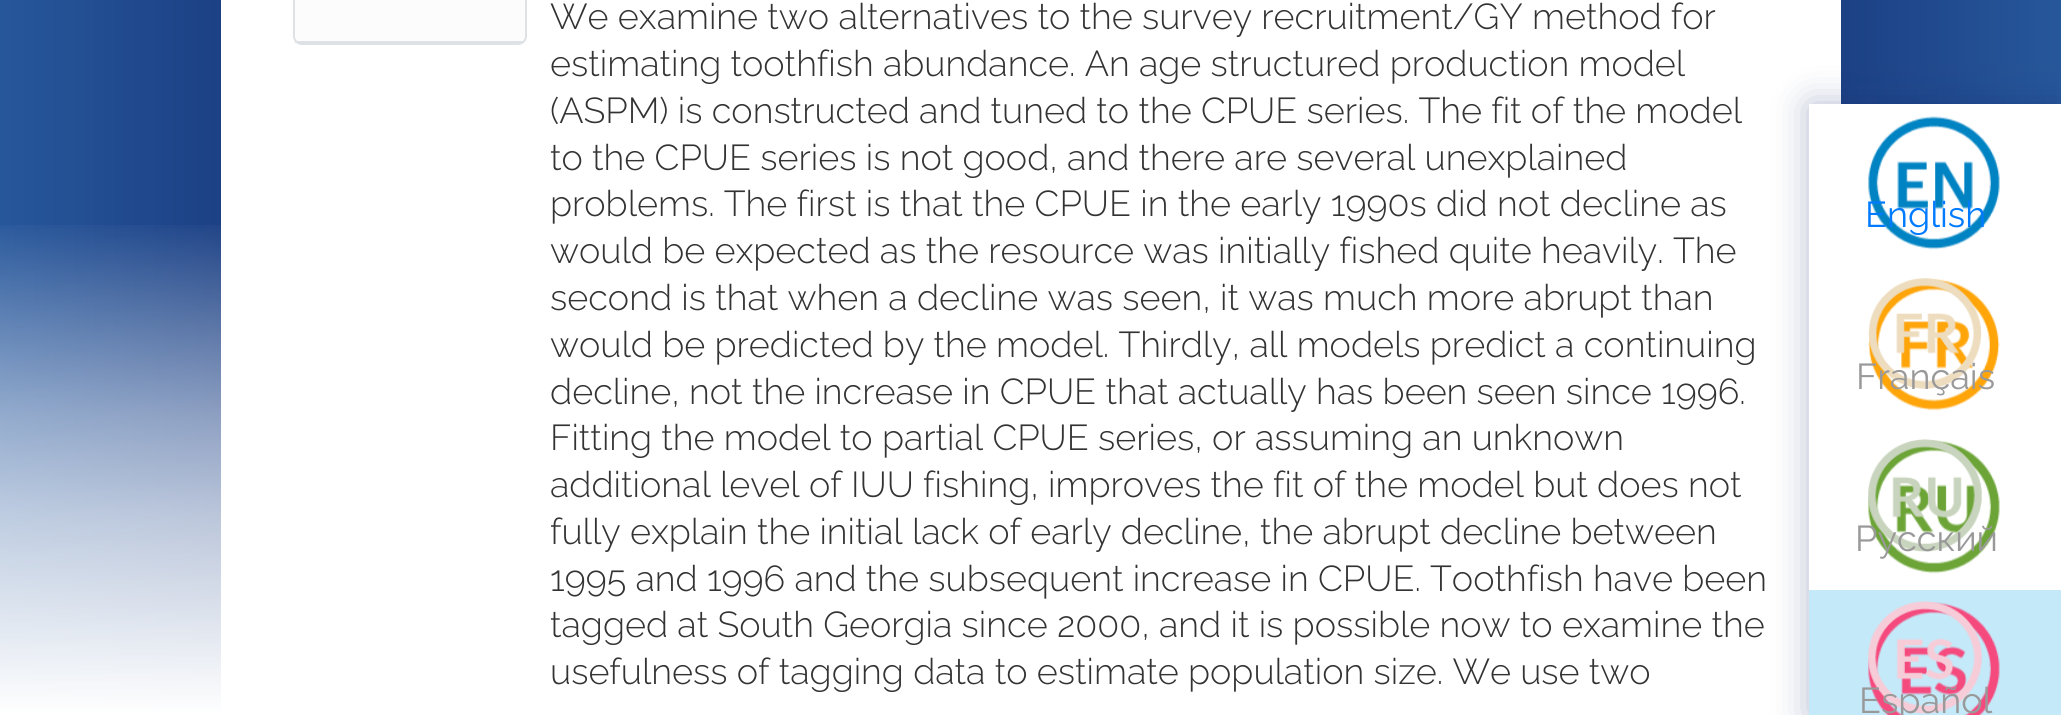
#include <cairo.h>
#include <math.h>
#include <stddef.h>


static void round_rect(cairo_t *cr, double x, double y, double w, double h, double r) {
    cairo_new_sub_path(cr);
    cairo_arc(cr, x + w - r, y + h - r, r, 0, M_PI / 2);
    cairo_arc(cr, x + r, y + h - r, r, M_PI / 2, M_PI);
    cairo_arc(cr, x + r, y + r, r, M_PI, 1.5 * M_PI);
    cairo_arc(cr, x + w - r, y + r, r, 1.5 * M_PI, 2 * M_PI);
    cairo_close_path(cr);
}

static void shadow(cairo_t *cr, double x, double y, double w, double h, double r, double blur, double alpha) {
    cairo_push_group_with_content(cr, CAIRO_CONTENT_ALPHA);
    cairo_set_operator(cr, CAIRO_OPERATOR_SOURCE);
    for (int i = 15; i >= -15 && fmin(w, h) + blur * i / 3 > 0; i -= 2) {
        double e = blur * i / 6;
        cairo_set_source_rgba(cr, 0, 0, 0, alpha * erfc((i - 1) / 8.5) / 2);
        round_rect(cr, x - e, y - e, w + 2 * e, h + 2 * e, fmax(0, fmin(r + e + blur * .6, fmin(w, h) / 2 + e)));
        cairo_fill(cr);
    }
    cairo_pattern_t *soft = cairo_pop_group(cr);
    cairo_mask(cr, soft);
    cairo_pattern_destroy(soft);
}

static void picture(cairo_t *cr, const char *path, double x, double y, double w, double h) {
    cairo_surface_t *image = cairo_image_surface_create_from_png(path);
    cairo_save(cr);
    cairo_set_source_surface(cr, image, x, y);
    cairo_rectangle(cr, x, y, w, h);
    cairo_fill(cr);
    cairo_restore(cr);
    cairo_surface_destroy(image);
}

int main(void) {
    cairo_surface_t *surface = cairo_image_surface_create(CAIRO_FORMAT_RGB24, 2061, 715);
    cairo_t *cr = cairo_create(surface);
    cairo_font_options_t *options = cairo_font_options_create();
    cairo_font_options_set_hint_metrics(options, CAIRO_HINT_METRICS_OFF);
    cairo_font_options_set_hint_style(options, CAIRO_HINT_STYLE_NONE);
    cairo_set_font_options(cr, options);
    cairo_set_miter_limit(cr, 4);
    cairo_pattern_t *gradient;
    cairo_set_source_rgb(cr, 1, 1, 1);
    cairo_paint(cr);
    gradient = cairo_pattern_create_linear(0, -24, 2061, -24);
    cairo_pattern_add_color_stop_rgba(gradient, 0, 0.153, 0.341, 0.608, 1);
    cairo_pattern_add_color_stop_rgba(gradient, 0.25, 0.055, 0.137, 0.404, 1);
    cairo_pattern_add_color_stop_rgba(gradient, 0.5, 0.043, 0.106, 0.318, 1);
    cairo_pattern_add_color_stop_rgba(gradient, 0.75, 0.055, 0.137, 0.404, 1);
    cairo_pattern_add_color_stop_rgba(gradient, 1, 0.153, 0.341, 0.608, 1);
    cairo_set_source(cr, gradient);
    cairo_pattern_destroy(gradient);
    cairo_rectangle(cr, 0, 0, 2061, 712);
    cairo_fill(cr);
    gradient = cairo_pattern_create_linear(1031, 216, 1031, 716);
    cairo_pattern_add_color_stop_rgba(gradient, 0, 1, 1, 1, 0);
    cairo_pattern_add_color_stop_rgba(gradient, 0.4, 1, 1, 1, 0.5);
    cairo_pattern_add_color_stop_rgba(gradient, 0.6, 1, 1, 1, 0.7);
    cairo_pattern_add_color_stop_rgba(gradient, 0.8, 1, 1, 1, 0.85);
    cairo_pattern_add_color_stop_rgba(gradient, 1, 1, 1, 1, 1);
    cairo_set_source(cr, gradient);
    cairo_pattern_destroy(gradient);
    cairo_rectangle(cr, 0, 225, 221, 487);
    cairo_fill(cr);
    cairo_set_source_rgb(cr, 1, 1, 1);
    cairo_rectangle(cr, 221, 0, 1620, 712);
    cairo_fill(cr);
    cairo_set_source_rgb(cr, 0.988, 0.988, 0.988);
    cairo_new_path(cr);
    cairo_move_to(cr, 294, -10);
    cairo_line_to(cr, 526, -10);
    cairo_line_to(cr, 526, 36);
    cairo_curve_to(cr, 526, 40.5, 522.5, 44, 518, 44);
    cairo_line_to(cr, 302, 44);
    cairo_curve_to(cr, 297.5, 44, 294, 40.5, 294, 36);
    cairo_close_path(cr);
    cairo_fill_preserve(cr);
    cairo_set_source_rgb(cr, 0.871, 0.886, 0.902);
    cairo_stroke(cr);
    cairo_rectangle(cr, 295, 41, 229, 2);
    cairo_fill(cr);
    cairo_select_font_face(cr, "Raleway Light", CAIRO_FONT_SLANT_NORMAL, CAIRO_FONT_WEIGHT_NORMAL);
    cairo_set_font_size(cr, 36);
    cairo_set_source_rgb(cr, 0.2, 0.2, 0.2);
    cairo_move_to(cr, 550, 29);
    cairo_show_text(cr, "We examine two alternatives to the survey recruitment/GY method for");
    cairo_move_to(cr, 550, 76);
    cairo_show_text(cr, "estimating toothfish abundance. An age structured production model");
    cairo_move_to(cr, 550, 123);
    cairo_show_text(cr, "(ASPM) is constructed and tuned to the CPUE series. The fit of the model");
    cairo_move_to(cr, 550, 170);
    cairo_show_text(cr, "to the CPUE series is not good, and there are several unexplained");
    cairo_move_to(cr, 550, 216);
    cairo_show_text(cr, "problems. The first is that the CPUE in the early 1990s did not decline as");
    cairo_move_to(cr, 550, 263);
    cairo_show_text(cr, "would be expected as the resource was initially fished quite heavily. The");
    cairo_move_to(cr, 550, 310);
    cairo_show_text(cr, "second is that when a decline was seen, it was much more abrupt than");
    cairo_move_to(cr, 550, 357);
    cairo_show_text(cr, "would be predicted by the model. Thirdly, all models predict a continuing");
    cairo_move_to(cr, 550, 404);
    cairo_show_text(cr, "decline, not the increase in CPUE that actually has been seen since 1996.");
    cairo_move_to(cr, 550, 450);
    cairo_show_text(cr, "Fitting the model to partial CPUE series, or assuming an unknown");
    cairo_move_to(cr, 550, 497);
    cairo_show_text(cr, "additional level of IUU fishing, improves the fit of the model but does not");
    cairo_move_to(cr, 550, 544);
    cairo_show_text(cr, "fully explain the initial lack of early decline, the abrupt decline between");
    cairo_set_source_rgb(cr, 0.055, 0.137, 0.404);
    shadow(cr, 1809, 104, 252, 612, 0, 18, 0.3);
    cairo_set_source_rgb(cr, 0.2, 0.2, 0.2);
    cairo_move_to(cr, 550, 591);
    cairo_show_text(cr, "1995 and 1996 and the subsequent increase in CPUE. Toothfish have been");
    cairo_move_to(cr, 550, 637);
    cairo_show_text(cr, "tagged at South Georgia since 2000, and it is possible now to examine the");
    cairo_move_to(cr, 550, 684);
    cairo_show_text(cr, "usefulness of tagging data to estimate population size. We use two");
    cairo_set_source_rgb(cr, 1, 1, 1);
    cairo_rectangle(cr, 1809, 104, 252, 486);
    cairo_fill(cr);
    picture(cr, "img1.png", 1868, 116, 132, 134);
    cairo_select_font_face(cr, "Raleway", CAIRO_FONT_SLANT_NORMAL, CAIRO_FONT_WEIGHT_NORMAL);
    cairo_set_source_rgb(cr, 0, 0.482, 1);
    cairo_move_to(cr, 1865, 227);
    cairo_show_text(cr, "English");
    picture(cr, "img2.png", 1868, 279, 132, 132);
    picture(cr, "img3.png", 1868, 278, 114, 111);
    cairo_set_source_rgb(cr, 0.6, 0.6, 0.6);
    cairo_move_to(cr, 1856, 389);
    cairo_show_text(cr, "Français");
    picture(cr, "img4.png", 1868, 440, 132, 134);
    picture(cr, "img5.png", 1868, 439, 114, 113);
    cairo_move_to(cr, 1855, 551);
    cairo_show_text(cr, "Русский");
    cairo_set_source_rgb(cr, 0.769, 0.914, 0.969);
    cairo_rectangle(cr, 1809, 590, 252, 125);
    cairo_fill(cr);
    picture(cr, "img6.png", 1868, 602, 132, 113);
    picture(cr, "img7.png", 1868, 601, 114, 113);
    cairo_set_source_rgb(cr, 0.6, 0.6, 0.6);
    cairo_move_to(cr, 1859, 713);
    cairo_show_text(cr, "Español");
    cairo_surface_write_to_png(surface, "page.png");
    cairo_font_options_destroy(options);
    cairo_destroy(cr);
    cairo_surface_destroy(surface);
    return 0;
}
